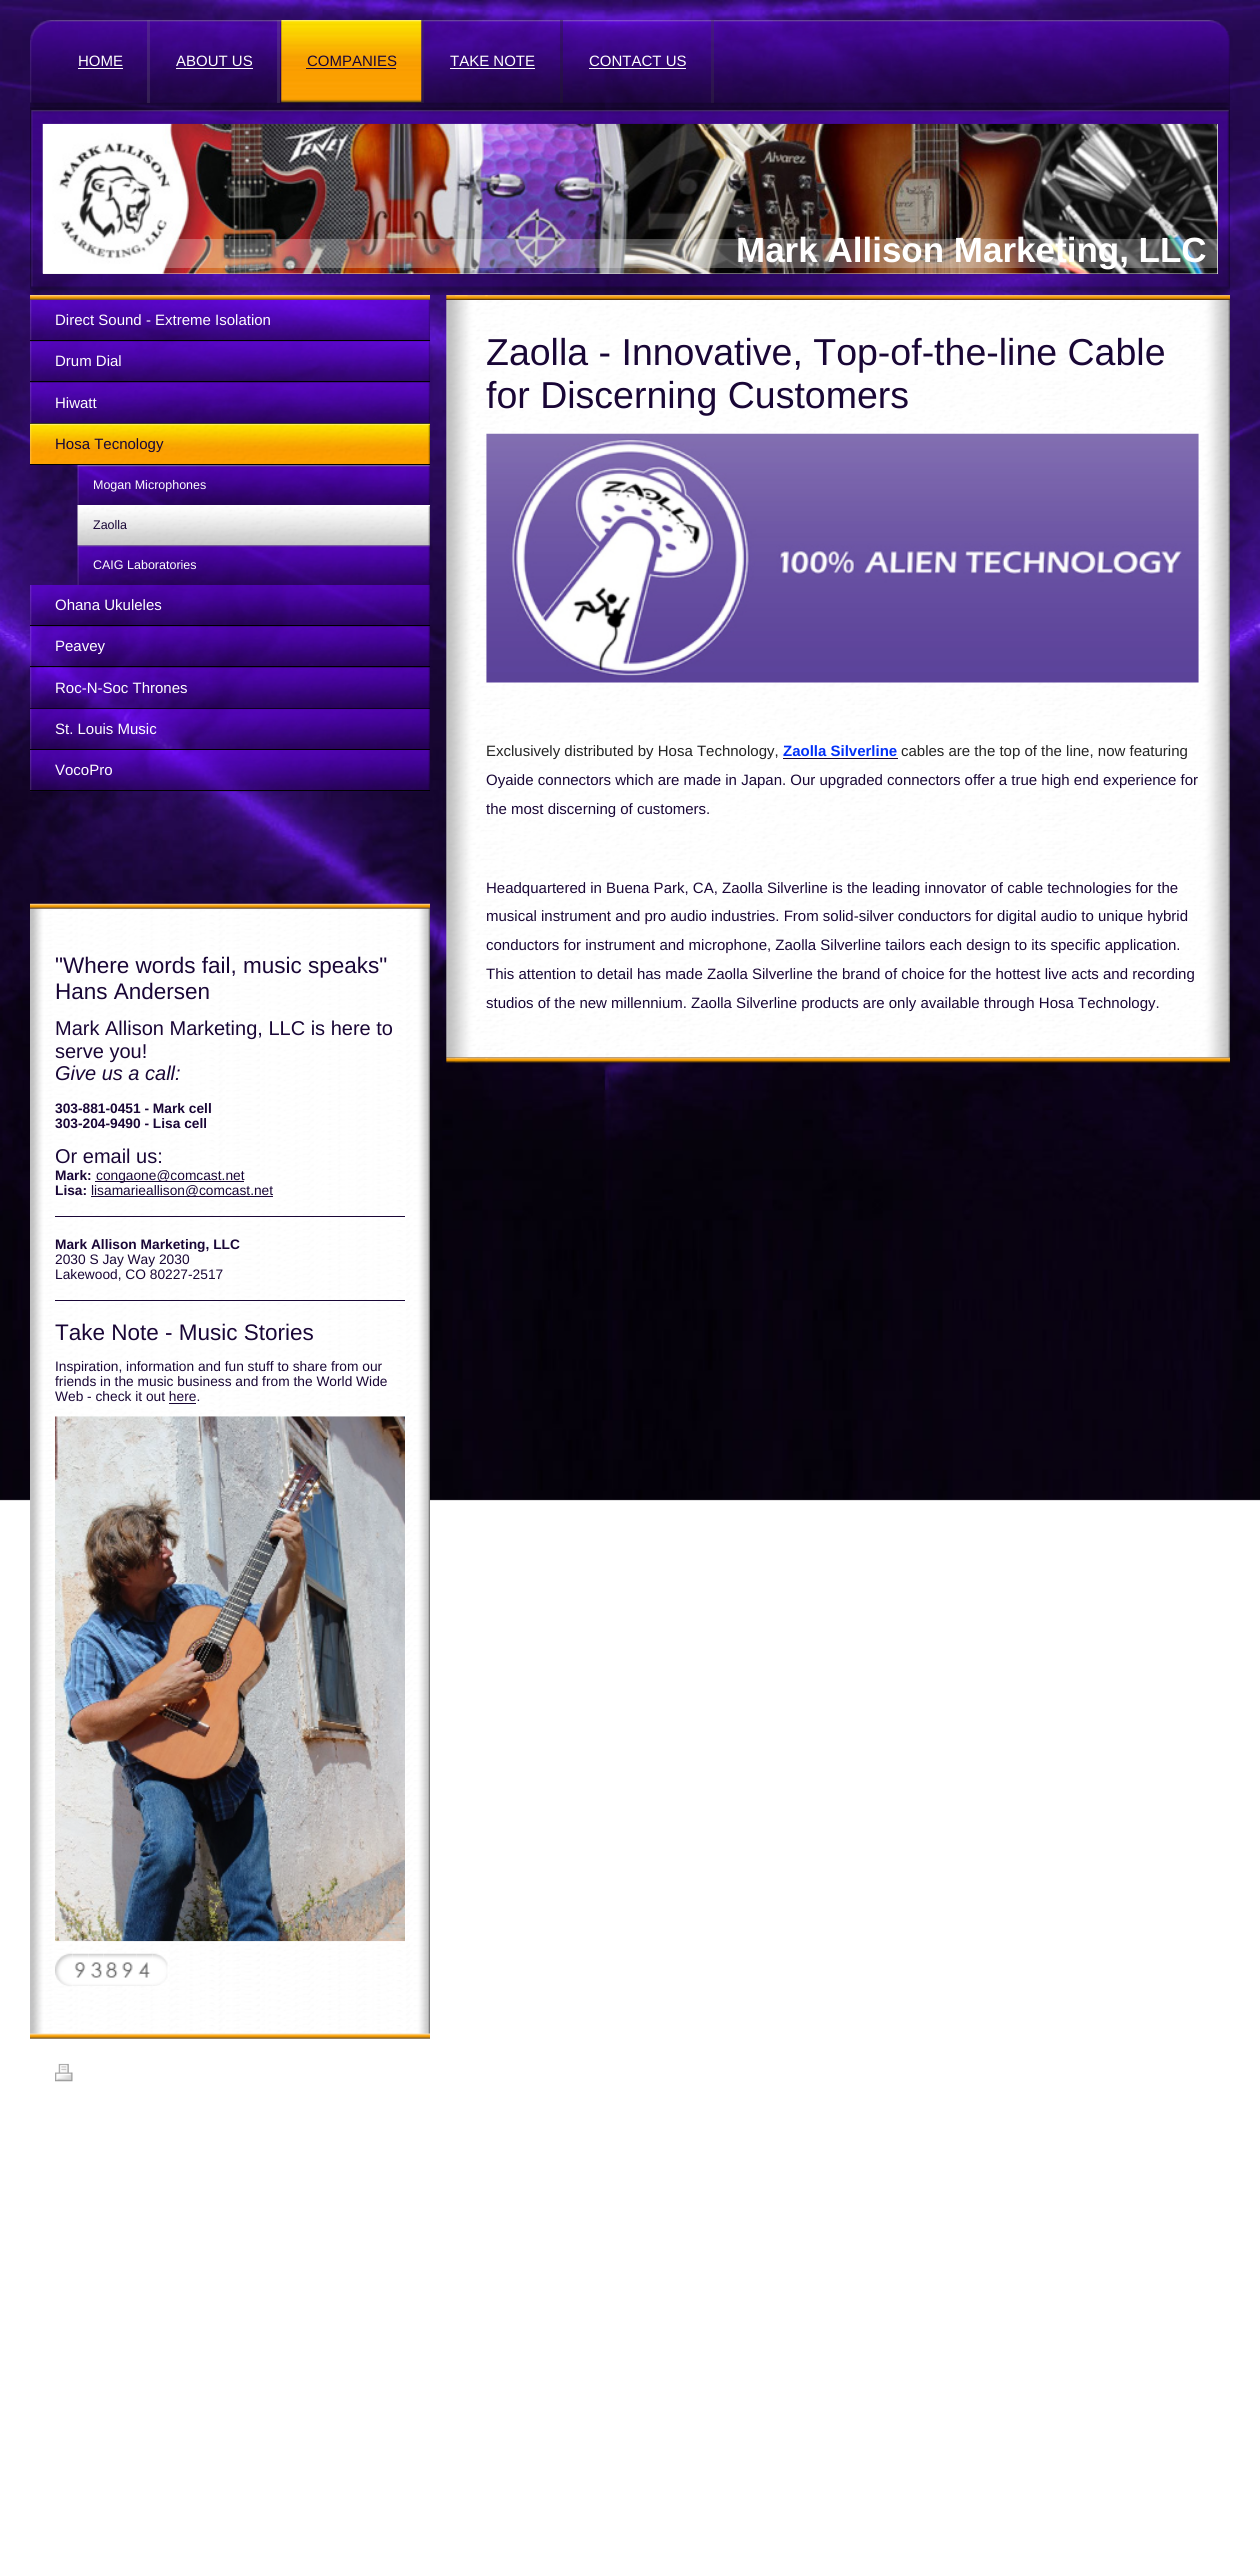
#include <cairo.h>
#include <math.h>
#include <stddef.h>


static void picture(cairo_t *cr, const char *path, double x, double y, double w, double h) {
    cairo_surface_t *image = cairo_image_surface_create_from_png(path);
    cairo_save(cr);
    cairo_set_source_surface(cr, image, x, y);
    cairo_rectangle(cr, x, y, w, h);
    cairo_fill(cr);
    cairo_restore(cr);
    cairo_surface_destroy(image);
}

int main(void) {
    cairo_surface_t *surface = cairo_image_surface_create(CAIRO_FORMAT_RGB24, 1260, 2557);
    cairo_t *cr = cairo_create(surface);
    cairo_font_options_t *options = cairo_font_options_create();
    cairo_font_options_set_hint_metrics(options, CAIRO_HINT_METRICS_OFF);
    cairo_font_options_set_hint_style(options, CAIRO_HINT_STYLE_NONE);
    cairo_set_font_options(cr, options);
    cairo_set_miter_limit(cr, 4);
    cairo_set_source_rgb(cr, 1, 1, 1);
    cairo_paint(cr);
    picture(cr, "img1.png", 0, 0, 1260, 1501);
    picture(cr, "img4.png", 30, 102, 1200, 7);
    picture(cr, "img2.png", 30, 20, 1200, 83);
    cairo_set_source_rgba(cr, 0.502, 0.502, 0.502, 0.22);
    cairo_rectangle(cr, 147, 20, 3, 83);
    cairo_fill(cr);
    cairo_select_font_face(cr, "Liberation Sans", CAIRO_FONT_SLANT_NORMAL, CAIRO_FONT_WEIGHT_NORMAL);
    cairo_set_font_size(cr, 15);
    cairo_set_source_rgb(cr, 1, 1, 1);
    cairo_move_to(cr, 78, 66);
    cairo_show_text(cr, "HOME");
    cairo_rectangle(cr, 78, 68, 45, 1);
    cairo_fill(cr);
    cairo_set_source_rgba(cr, 0.502, 0.502, 0.502, 0.22);
    cairo_rectangle(cr, 277, 20, 3, 83);
    cairo_fill(cr);
    cairo_set_source_rgb(cr, 1, 1, 1);
    cairo_move_to(cr, 176, 66);
    cairo_show_text(cr, "ABOUT US");
    cairo_rectangle(cr, 176, 68, 77, 1);
    cairo_fill(cr);
    cairo_set_source_rgba(cr, 0.255, 0.255, 0.255, 0.29);
    cairo_rectangle(cr, 421, 20, 3, 83);
    cairo_fill(cr);
    cairo_set_source_rgb(cr, 0.098, 0.024, 0.212);
    cairo_rectangle(cr, 281, 20, 140, 83);
    cairo_fill(cr);
    picture(cr, "img3.png", 281, 20, 141, 83);
    cairo_move_to(cr, 307, 66);
    cairo_show_text(cr, "COMPANIES");
    cairo_rectangle(cr, 306, 68, 90, 1);
    cairo_fill(cr);
    cairo_set_source_rgba(cr, 0.125, 0.125, 0.125, 0.35);
    cairo_rectangle(cr, 560, 20, 3, 83);
    cairo_fill(cr);
    cairo_set_source_rgb(cr, 1, 1, 1);
    cairo_move_to(cr, 450, 66);
    cairo_show_text(cr, "TAKE NOTE");
    cairo_rectangle(cr, 450, 68, 85, 1);
    cairo_fill(cr);
    cairo_set_source_rgba(cr, 0.255, 0.255, 0.255, 0.29);
    cairo_rectangle(cr, 711, 20, 3, 83);
    cairo_fill(cr);
    cairo_set_source_rgb(cr, 1, 1, 1);
    cairo_move_to(cr, 589, 66);
    cairo_show_text(cr, "CONTACT US");
    cairo_rectangle(cr, 589, 68, 97, 1);
    cairo_fill(cr);
    picture(cr, "img5.png", 30, 108, 1200, 187);
    cairo_set_source_rgb(cr, 0.933, 0.933, 0.933);
    cairo_rectangle(cr, 43, 124, 1175, 150);
    cairo_fill(cr);
    picture(cr, "img6.png", 42, 123, 1176, 151);
    cairo_set_source_rgba(cr, 1, 1, 1, 0.27);
    cairo_rectangle(cr, 72, 239, 1146, 29);
    cairo_fill(cr);
    cairo_select_font_face(cr, "Liberation Sans", CAIRO_FONT_SLANT_NORMAL, CAIRO_FONT_WEIGHT_BOLD);
    cairo_set_font_size(cr, 35);
    cairo_set_source_rgb(cr, 1, 1, 1);
    cairo_move_to(cr, 736, 262);
    cairo_show_text(cr, "Mark Allison Marketing, LLC");
    picture(cr, "img7.png", 30, 295, 400, 5);
    picture(cr, "img8.png", 30, 300, 400, 42);
    cairo_set_source_rgb(cr, 0, 0, 0);
    cairo_rectangle(cr, 30, 340, 400, 1);
    cairo_fill(cr);
    cairo_select_font_face(cr, "Liberation Sans", CAIRO_FONT_SLANT_NORMAL, CAIRO_FONT_WEIGHT_NORMAL);
    cairo_set_font_size(cr, 15);
    cairo_set_source_rgb(cr, 1, 1, 1);
    cairo_move_to(cr, 55, 325);
    cairo_show_text(cr, "Direct Sound - Extreme Isolation");
    picture(cr, "img9.png", 30, 341, 400, 42);
    cairo_set_source_rgb(cr, 0, 0, 0);
    cairo_rectangle(cr, 30, 381, 400, 1);
    cairo_fill(cr);
    cairo_set_source_rgb(cr, 1, 1, 1);
    cairo_move_to(cr, 55, 366);
    cairo_show_text(cr, "Drum Dial");
    picture(cr, "img10.png", 30, 382, 400, 41);
    cairo_set_source_rgb(cr, 0, 0, 0);
    cairo_rectangle(cr, 30, 423, 400, 1);
    cairo_fill(cr);
    cairo_set_source_rgb(cr, 1, 1, 1);
    cairo_move_to(cr, 55, 408);
    cairo_show_text(cr, "Hiwatt");
    picture(cr, "img11.png", 30, 423, 400, 41);
    cairo_set_source_rgb(cr, 0, 0, 0);
    cairo_rectangle(cr, 30, 464, 400, 1);
    cairo_fill(cr);
    cairo_set_source_rgb(cr, 0.098, 0.024, 0.212);
    cairo_move_to(cr, 55, 449);
    cairo_show_text(cr, "Hosa Tecnology");
    picture(cr, "img12.png", 77, 465, 353, 40);
    cairo_set_font_size(cr, 12.5);
    cairo_set_source_rgb(cr, 1, 1, 1);
    cairo_move_to(cr, 93, 489);
    cairo_show_text(cr, "Mogan Microphones");
    picture(cr, "img13.png", 77, 505, 353, 40);
    cairo_set_source_rgb(cr, 0.098, 0.024, 0.212);
    cairo_move_to(cr, 93, 529);
    cairo_show_text(cr, "Zaolla");
    picture(cr, "img14.png", 77, 545, 353, 40);
    cairo_set_source_rgb(cr, 1, 1, 1);
    cairo_move_to(cr, 93, 569);
    cairo_show_text(cr, "CAIG Laboratories");
    picture(cr, "img15.png", 30, 585, 400, 42);
    cairo_set_source_rgb(cr, 0, 0, 0);
    cairo_rectangle(cr, 30, 625, 400, 1);
    cairo_fill(cr);
    cairo_set_font_size(cr, 15);
    cairo_set_source_rgb(cr, 1, 1, 1);
    cairo_move_to(cr, 55, 610);
    cairo_show_text(cr, "Ohana Ukuleles");
    picture(cr, "img16.png", 30, 626, 400, 42);
    cairo_set_source_rgb(cr, 0, 0, 0);
    cairo_rectangle(cr, 30, 666, 400, 1);
    cairo_fill(cr);
    cairo_set_source_rgb(cr, 1, 1, 1);
    cairo_move_to(cr, 55, 651);
    cairo_show_text(cr, "Peavey");
    picture(cr, "img17.png", 30, 667, 400, 41);
    cairo_set_source_rgb(cr, 0, 0, 0);
    cairo_rectangle(cr, 30, 708, 400, 1);
    cairo_fill(cr);
    cairo_set_source_rgb(cr, 1, 1, 1);
    cairo_move_to(cr, 55, 693);
    cairo_show_text(cr, "Roc-N-Soc Thrones");
    picture(cr, "img18.png", 30, 708, 400, 41);
    cairo_set_source_rgb(cr, 0, 0, 0);
    cairo_rectangle(cr, 30, 749, 400, 1);
    cairo_fill(cr);
    cairo_set_source_rgb(cr, 1, 1, 1);
    cairo_move_to(cr, 55, 734);
    cairo_show_text(cr, "St. Louis Music");
    picture(cr, "img19.png", 30, 750, 400, 42);
    cairo_set_source_rgb(cr, 0, 0, 0);
    cairo_rectangle(cr, 30, 790, 400, 1);
    cairo_fill(cr);
    cairo_set_source_rgb(cr, 1, 1, 1);
    cairo_move_to(cr, 55, 775);
    cairo_show_text(cr, "VocoPro");
    picture(cr, "img20.png", 30, 903, 400, 6);
    picture(cr, "img21.png", 30, 908, 400, 1126);
    cairo_set_font_size(cr, 22.5);
    cairo_set_source_rgb(cr, 0.098, 0.024, 0.212);
    cairo_move_to(cr, 55, 973);
    cairo_show_text(cr, "\"Where words fail, music speaks\"");
    cairo_move_to(cr, 55, 999);
    cairo_show_text(cr, "Hans Andersen");
    cairo_set_font_size(cr, 20);
    cairo_move_to(cr, 55, 1035);
    cairo_show_text(cr, "Mark Allison Marketing, LLC is here to");
    cairo_move_to(cr, 55, 1058);
    cairo_show_text(cr, "serve you!");
    cairo_select_font_face(cr, "Liberation Sans", CAIRO_FONT_SLANT_ITALIC, CAIRO_FONT_WEIGHT_NORMAL);
    cairo_move_to(cr, 55, 1080);
    cairo_show_text(cr, "Give us a call:");
    cairo_select_font_face(cr, "Liberation Sans", CAIRO_FONT_SLANT_NORMAL, CAIRO_FONT_WEIGHT_BOLD);
    cairo_set_font_size(cr, 13.75);
    cairo_move_to(cr, 55, 1113);
    cairo_show_text(cr, "303-881-0451 - Mark cell");
    cairo_move_to(cr, 55, 1128);
    cairo_show_text(cr, "303-204-9490 - Lisa cell");
    cairo_select_font_face(cr, "Liberation Sans", CAIRO_FONT_SLANT_NORMAL, CAIRO_FONT_WEIGHT_NORMAL);
    cairo_set_font_size(cr, 20);
    cairo_move_to(cr, 55, 1163);
    cairo_show_text(cr, "Or email us:");
    cairo_select_font_face(cr, "Liberation Sans", CAIRO_FONT_SLANT_NORMAL, CAIRO_FONT_WEIGHT_BOLD);
    cairo_set_font_size(cr, 13.75);
    cairo_move_to(cr, 55, 1180);
    cairo_show_text(cr, "Mark:");
    cairo_rectangle(cr, 95, 1181, 149, 1);
    cairo_fill(cr);
    cairo_select_font_face(cr, "Liberation Sans", CAIRO_FONT_SLANT_NORMAL, CAIRO_FONT_WEIGHT_NORMAL);
    cairo_move_to(cr, 96, 1180);
    cairo_show_text(cr, "congaone@comcast.net");
    cairo_select_font_face(cr, "Liberation Sans", CAIRO_FONT_SLANT_NORMAL, CAIRO_FONT_WEIGHT_BOLD);
    cairo_move_to(cr, 55, 1195);
    cairo_show_text(cr, "Lisa:");
    cairo_rectangle(cr, 91, 1196, 182, 1);
    cairo_fill(cr);
    cairo_select_font_face(cr, "Liberation Sans", CAIRO_FONT_SLANT_NORMAL, CAIRO_FONT_WEIGHT_NORMAL);
    cairo_move_to(cr, 91, 1195);
    cairo_show_text(cr, "lisamarieallison@comcast.net");
    cairo_rectangle(cr, 55, 1216, 350, 1);
    cairo_fill(cr);
    cairo_select_font_face(cr, "Liberation Sans", CAIRO_FONT_SLANT_NORMAL, CAIRO_FONT_WEIGHT_BOLD);
    cairo_move_to(cr, 55, 1249);
    cairo_show_text(cr, "Mark Allison Marketing, LLC");
    cairo_select_font_face(cr, "Liberation Sans", CAIRO_FONT_SLANT_NORMAL, CAIRO_FONT_WEIGHT_NORMAL);
    cairo_move_to(cr, 55, 1264);
    cairo_show_text(cr, "2030 S Jay Way 2030");
    cairo_move_to(cr, 55, 1279);
    cairo_show_text(cr, "Lakewood, CO 80227-2517");
    cairo_rectangle(cr, 55, 1300, 350, 1);
    cairo_fill(cr);
    cairo_set_font_size(cr, 22.5);
    cairo_move_to(cr, 55, 1340);
    cairo_show_text(cr, "Take Note - Music Stories");
    cairo_set_font_size(cr, 13.75);
    cairo_move_to(cr, 55, 1371);
    cairo_show_text(cr, "Inspiration, information and fun stuff to share from our");
    cairo_move_to(cr, 55, 1386);
    cairo_show_text(cr, "friends in the music business and from the World Wide");
    cairo_move_to(cr, 55, 1401);
    cairo_show_text(cr, "Web - check it out here.");
    cairo_rectangle(cr, 169, 1403, 27, 1);
    cairo_fill(cr);
    picture(cr, "img22.png", 55, 1416, 350, 526);
    picture(cr, "img23.png", 55, 1953, 18, 34);
    picture(cr, "img24.png", 72, 1953, 17, 33);
    picture(cr, "img25.png", 89, 1953, 15, 33);
    picture(cr, "img26.png", 104, 1953, 16, 33);
    picture(cr, "img27.png", 120, 1953, 17, 33);
    picture(cr, "img28.png", 136, 1953, 17, 33);
    picture(cr, "img29.png", 152, 1953, 16, 33);
    picture(cr, "img30.png", 30, 2033, 400, 6);
    picture(cr, "img31.png", 446, 295, 784, 5);
    picture(cr, "img32.png", 446, 300, 784, 758);
    cairo_set_font_size(cr, 37.5);
    cairo_move_to(cr, 486, 365);
    cairo_show_text(cr, "Zaolla - Innovative, Top-of-the-line Cable");
    cairo_move_to(cr, 486, 408);
    cairo_show_text(cr, "for Discerning Customers");
    picture(cr, "img33.png", 486, 433, 713, 250);
    cairo_set_font_size(cr, 15);
    cairo_set_source_rgb(cr, 0.137, 0.137, 0.137);
    cairo_move_to(cr, 486, 756);
    cairo_show_text(cr, "Exclusively distributed by Hosa Technology,");
    cairo_select_font_face(cr, "Liberation Sans", CAIRO_FONT_SLANT_NORMAL, CAIRO_FONT_WEIGHT_BOLD);
    cairo_set_source_rgb(cr, 0.008, 0.192, 0.976);
    cairo_move_to(cr, 783, 756);
    cairo_show_text(cr, "Zaolla Silverline");
    cairo_set_source_rgb(cr, 0.098, 0.024, 0.212);
    cairo_rectangle(cr, 783, 758, 115, 1);
    cairo_fill(cr);
    cairo_select_font_face(cr, "Liberation Sans", CAIRO_FONT_SLANT_NORMAL, CAIRO_FONT_WEIGHT_NORMAL);
    cairo_set_source_rgb(cr, 0.137, 0.137, 0.137);
    cairo_move_to(cr, 901, 756);
    cairo_show_text(cr, "cables are the top of the line, now featuring");
    cairo_set_source_rgb(cr, 0.098, 0.024, 0.212);
    cairo_move_to(cr, 486, 785);
    cairo_show_text(cr, "Oyaide connectors which are made in Japan. Our upgraded connectors offer a true high end experience for");
    cairo_move_to(cr, 486, 814);
    cairo_show_text(cr, "the most discerning of customers.");
    cairo_move_to(cr, 486, 893);
    cairo_show_text(cr, "Headquartered in Buena Park, CA, Zaolla Silverline is the leading innovator of cable technologies for the");
    cairo_move_to(cr, 486, 921);
    cairo_show_text(cr, "musical instrument and pro audio industries. From solid-silver conductors for digital audio to unique hybrid");
    cairo_move_to(cr, 486, 950);
    cairo_show_text(cr, "conductors for instrument and microphone, Zaolla Silverline tailors each design to its specific application.");
    cairo_move_to(cr, 486, 979);
    cairo_show_text(cr, "This attention to detail has made Zaolla Silverline the brand of choice for the hottest live acts and recording");
    cairo_move_to(cr, 486, 1008);
    cairo_show_text(cr, "studios of the new millennium. Zaolla Silverline products are only available through Hosa Technology.");
    picture(cr, "img34.png", 446, 1057, 784, 6);
    picture(cr, "img35.png", 55, 2063, 18, 19);
    cairo_surface_write_to_png(surface, "page.png");
    cairo_font_options_destroy(options);
    cairo_destroy(cr);
    cairo_surface_destroy(surface);
    return 0;
}
